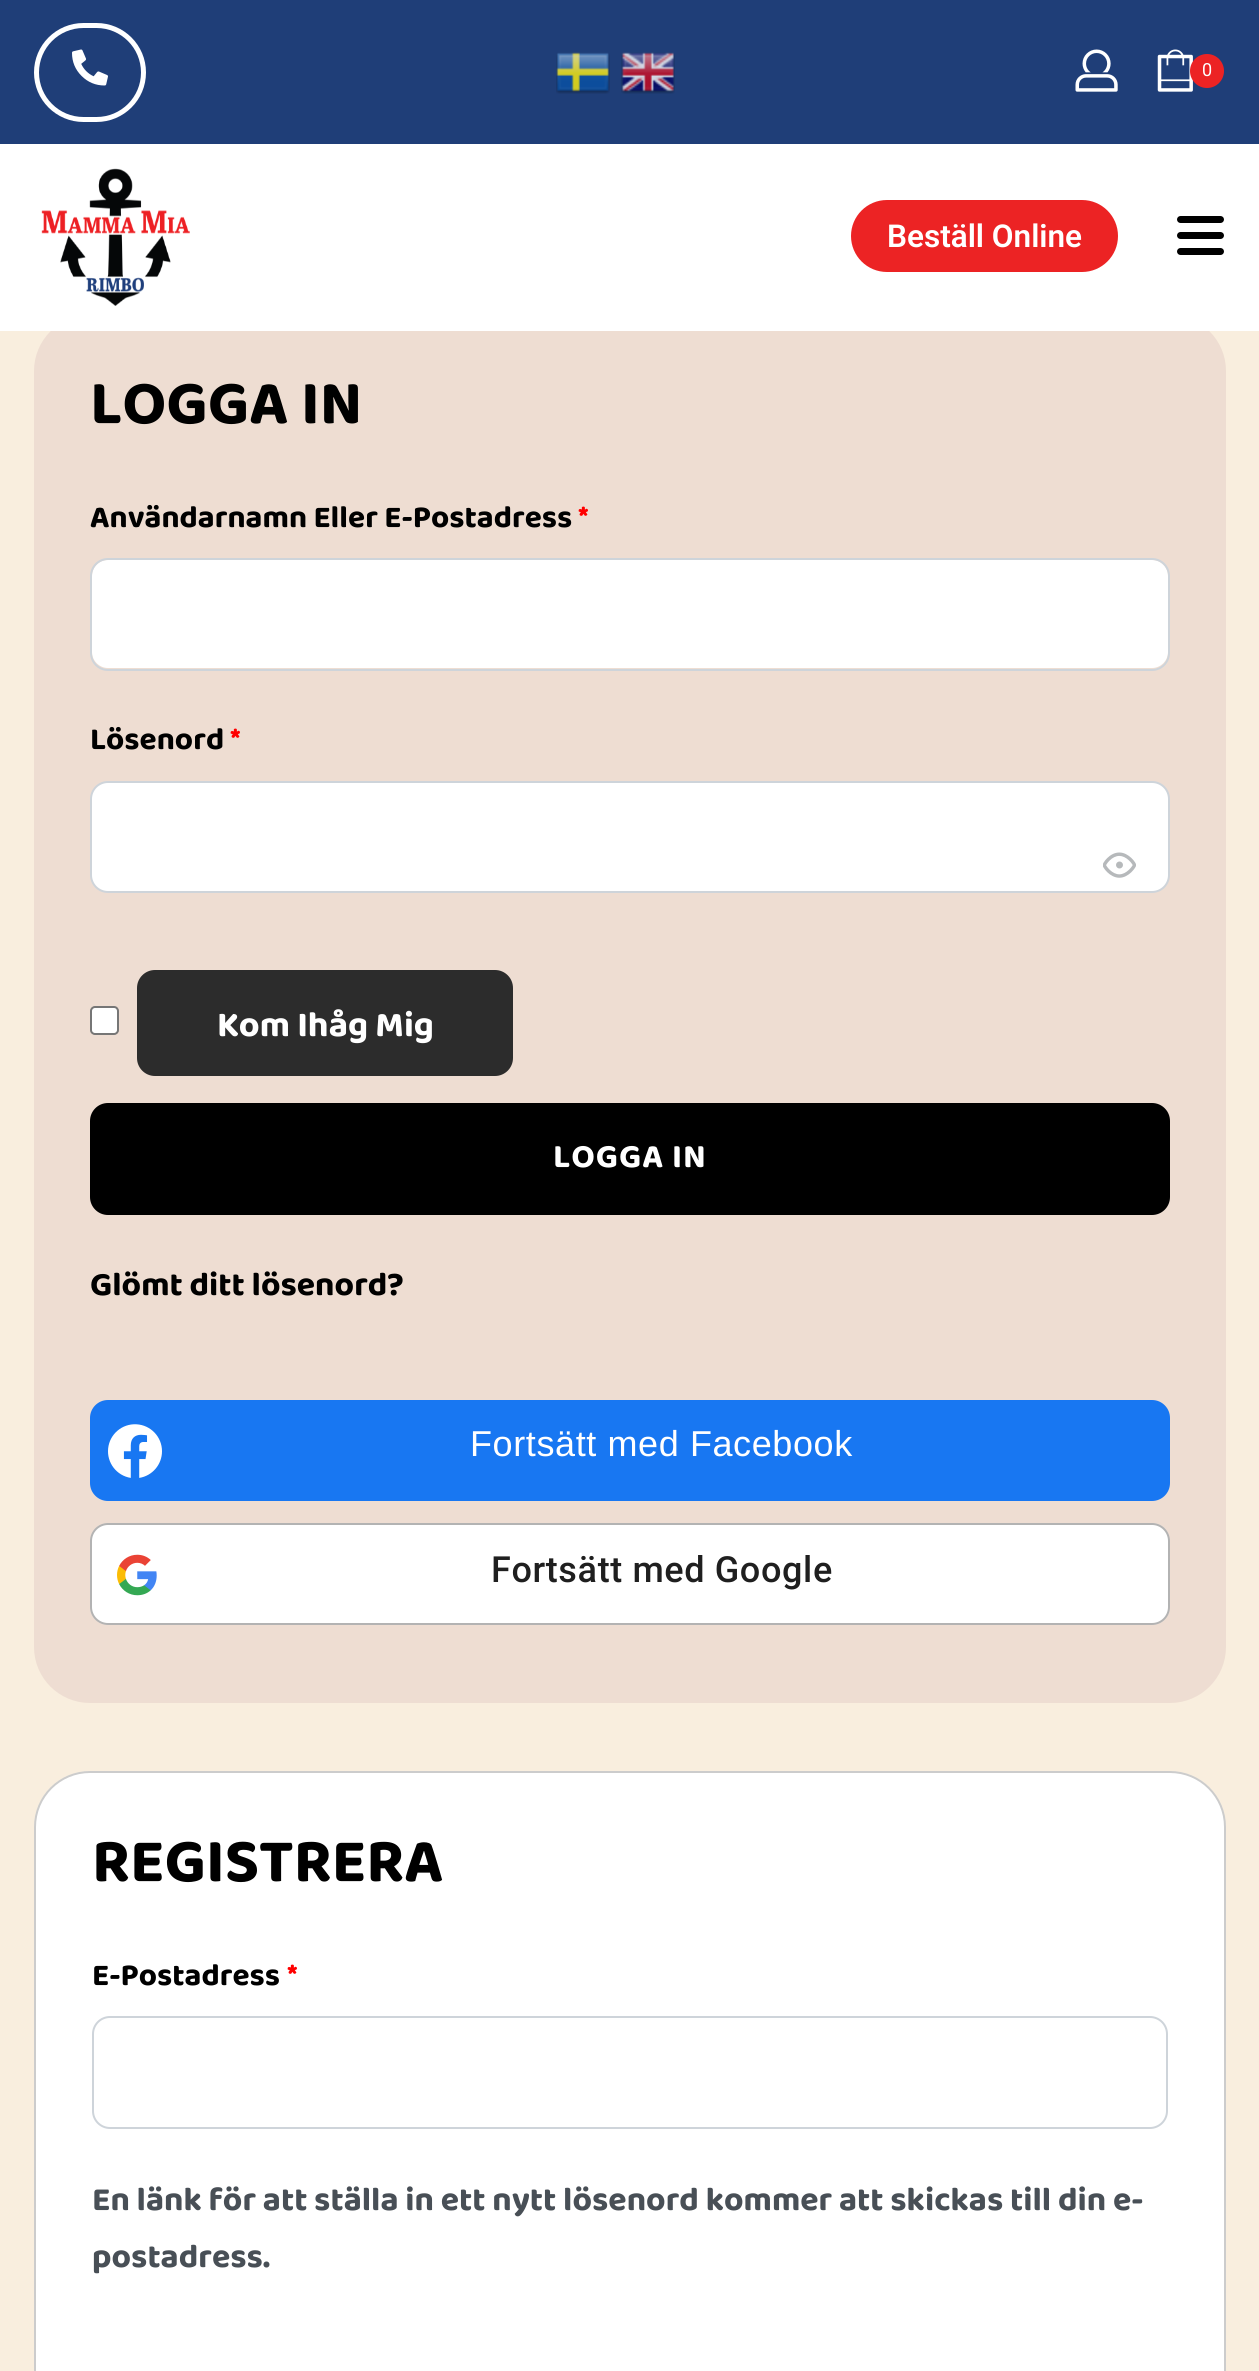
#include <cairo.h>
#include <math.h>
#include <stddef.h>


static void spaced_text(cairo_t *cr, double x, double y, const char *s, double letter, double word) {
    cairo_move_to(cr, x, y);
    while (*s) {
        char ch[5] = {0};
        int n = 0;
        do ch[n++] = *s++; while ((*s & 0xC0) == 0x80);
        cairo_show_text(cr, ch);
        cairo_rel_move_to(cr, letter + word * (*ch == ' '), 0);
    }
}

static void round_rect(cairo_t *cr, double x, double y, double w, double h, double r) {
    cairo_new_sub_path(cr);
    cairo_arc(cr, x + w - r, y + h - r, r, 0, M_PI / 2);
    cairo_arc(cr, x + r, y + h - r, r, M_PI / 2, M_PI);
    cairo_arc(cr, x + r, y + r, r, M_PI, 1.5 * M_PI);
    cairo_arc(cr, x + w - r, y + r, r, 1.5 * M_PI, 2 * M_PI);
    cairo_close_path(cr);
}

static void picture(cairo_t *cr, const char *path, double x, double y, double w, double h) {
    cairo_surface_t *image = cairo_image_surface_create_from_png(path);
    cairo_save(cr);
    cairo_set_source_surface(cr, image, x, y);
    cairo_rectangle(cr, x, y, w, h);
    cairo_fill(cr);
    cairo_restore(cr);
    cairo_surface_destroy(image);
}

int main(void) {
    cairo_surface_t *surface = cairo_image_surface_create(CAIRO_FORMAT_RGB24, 1259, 2371);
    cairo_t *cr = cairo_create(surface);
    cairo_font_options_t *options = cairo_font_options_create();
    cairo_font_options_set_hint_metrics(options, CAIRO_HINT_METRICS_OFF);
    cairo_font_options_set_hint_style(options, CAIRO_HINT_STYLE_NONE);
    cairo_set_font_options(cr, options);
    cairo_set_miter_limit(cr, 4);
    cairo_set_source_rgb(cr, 0.976, 0.933, 0.871);
    cairo_paint(cr);
    cairo_set_source_rgb(cr, 0.122, 0.243, 0.471);
    cairo_rectangle(cr, 0, 0, 1259, 144);
    cairo_fill(cr);
    round_rect(cr, 36.5, 25.5, 107, 94, 47);
    cairo_set_source_rgb(cr, 1, 1, 1);
    cairo_set_line_width(cr, 5);
    cairo_stroke(cr);
    picture(cr, "img1.png", 72, 49, 36, 37);
    picture(cr, "img2.png", 556, 52, 54, 42);
    picture(cr, "img3.png", 621, 52, 54, 42);
    picture(cr, "img4.png", 1075, 49, 43, 43);
    picture(cr, "img5.png", 1157, 49, 36, 43);
    cairo_set_source_rgb(cr, 0.925, 0.137, 0.141);
    cairo_arc(cr, 1207, 71, 17, 0, 2 * M_PI);
    cairo_fill(cr);
    cairo_select_font_face(cr, "Roboto", CAIRO_FONT_SLANT_NORMAL, CAIRO_FONT_WEIGHT_NORMAL);
    cairo_set_font_size(cr, 18);
    cairo_set_source_rgb(cr, 1, 1, 1);
    cairo_move_to(cr, 1202, 76);
    cairo_show_text(cr, "0");
    cairo_set_source_rgb(cr, 0.933, 0.867, 0.824);
    round_rect(cr, 34, 315, 1192, 1388, 56);
    cairo_fill(cr);
    cairo_set_source_rgb(cr, 1, 1, 1);
    cairo_rectangle(cr, 0, 144, 1259, 187);
    cairo_fill(cr);
    picture(cr, "img6.png", 41, 168, 149, 138);
    cairo_set_source_rgb(cr, 0.925, 0.137, 0.141);
    round_rect(cr, 851, 200, 267, 72, 36);
    cairo_fill(cr);
    cairo_select_font_face(cr, "Roboto SemiBold", CAIRO_FONT_SLANT_NORMAL, CAIRO_FONT_WEIGHT_NORMAL);
    cairo_set_font_size(cr, 31.5);
    cairo_set_source_rgb(cr, 1, 1, 1);
    cairo_move_to(cr, 887, 247);
    cairo_show_text(cr, "Beställ Online");
    cairo_set_source_rgb(cr, 0, 0, 0);
    round_rect(cr, 1177, 216, 47, 7, 3.5);
    cairo_fill(cr);
    round_rect(cr, 1177, 232, 47, 7, 3.5);
    cairo_fill(cr);
    round_rect(cr, 1177, 248, 47, 7, 3.5);
    cairo_fill(cr);
    cairo_select_font_face(cr, "Baloo 2", CAIRO_FONT_SLANT_NORMAL, CAIRO_FONT_WEIGHT_BOLD);
    cairo_set_font_size(cr, 63);
    cairo_move_to(cr, 90, 423);
    cairo_show_text(cr, "LOGGA IN");
    cairo_set_font_size(cr, 31.5);
    cairo_move_to(cr, 90, 527);
    cairo_show_text(cr, "Användarnamn Eller E-Postadress");
    cairo_set_source_rgb(cr, 1, 0, 0);
    cairo_move_to(cr, 578, 527);
    cairo_show_text(cr, "*");
    cairo_set_source_rgb(cr, 1, 1, 1);
    round_rect(cr, 92, 560, 1076, 108, 16);
    cairo_fill(cr);
    round_rect(cr, 91, 559, 1078, 111, 17);
    cairo_set_source_rgb(cr, 0.808, 0.831, 0.855);
    cairo_set_line_width(cr, 2);
    cairo_stroke(cr);
    cairo_set_source_rgb(cr, 0, 0, 0);
    cairo_move_to(cr, 90, 749);
    cairo_show_text(cr, "Lösenord");
    cairo_set_source_rgb(cr, 1, 0, 0);
    cairo_move_to(cr, 230, 749);
    cairo_show_text(cr, "*");
    cairo_set_source_rgb(cr, 1, 1, 1);
    round_rect(cr, 91, 782, 1078, 110, 17);
    cairo_fill_preserve(cr);
    cairo_set_source_rgb(cr, 0.808, 0.831, 0.855);
    cairo_stroke(cr);
    picture(cr, "img7.png", 1103, 852, 33, 26);
    cairo_set_source_rgb(cr, 1, 1, 1);
    round_rect(cr, 91, 1007, 27, 27, 4);
    cairo_fill_preserve(cr);
    cairo_set_source_rgb(cr, 0.463, 0.463, 0.463);
    cairo_stroke(cr);
    cairo_set_source_rgb(cr, 0.173, 0.173, 0.173);
    round_rect(cr, 137, 970, 376, 106, 18);
    cairo_fill(cr);
    cairo_set_font_size(cr, 36);
    cairo_set_source_rgb(cr, 1, 1, 1);
    cairo_move_to(cr, 217, 1036);
    cairo_show_text(cr, "Kom Ihåg Mig");
    cairo_set_source_rgb(cr, 0, 0, 0);
    round_rect(cr, 90, 1103, 1080, 112, 18);
    cairo_fill(cr);
    cairo_set_font_size(cr, 33.75);
    cairo_set_source_rgb(cr, 1, 1, 1);
    spaced_text(cr, 553, 1167, "LOGGA IN", 1, 0);
    cairo_set_source_rgb(cr, 0, 0, 0);
    cairo_move_to(cr, 90, 1295);
    cairo_show_text(cr, "Glömt ditt lösenord?");
    cairo_set_source_rgb(cr, 0.094, 0.467, 0.949);
    round_rect(cr, 90, 1400, 1080, 101, 18);
    cairo_fill(cr);
    picture(cr, "img8.png", 108, 1424, 54, 54);
    cairo_select_font_face(cr, "Liberation Sans", CAIRO_FONT_SLANT_NORMAL, CAIRO_FONT_WEIGHT_NORMAL);
    cairo_set_font_size(cr, 36);
    cairo_set_source_rgb(cr, 1, 1, 1);
    spaced_text(cr, 470, 1456, "Fortsätt med Facebook", 0.6, 0);
    round_rect(cr, 90, 1523, 1080, 102, 18);
    cairo_fill(cr);
    round_rect(cr, 91, 1524, 1078, 100, 17);
    cairo_set_source_rgba(cr, 0, 0, 0, 0.3);
    cairo_stroke(cr);
    picture(cr, "img9.png", 117, 1554, 40, 42);
    cairo_select_font_face(cr, "Roboto Medium", CAIRO_FONT_SLANT_NORMAL, CAIRO_FONT_WEIGHT_NORMAL);
    cairo_set_source_rgb(cr, 0.122, 0.122, 0.122);
    spaced_text(cr, 491, 1582, "Fortsätt med Google", 0.6, 0);
    cairo_set_source_rgb(cr, 1, 1, 1);
    round_rect(cr, 34, 1771, 1192, 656, 56);
    cairo_fill(cr);
    round_rect(cr, 35, 1772, 1190, 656, 55);
    cairo_set_source_rgba(cr, 0, 0, 0, 0.2);
    cairo_stroke(cr);
    cairo_select_font_face(cr, "Baloo 2", CAIRO_FONT_SLANT_NORMAL, CAIRO_FONT_WEIGHT_BOLD);
    cairo_set_font_size(cr, 63);
    cairo_set_source_rgb(cr, 0, 0, 0);
    cairo_move_to(cr, 92, 1881);
    cairo_show_text(cr, "REGISTRERA");
    cairo_set_font_size(cr, 31.5);
    cairo_move_to(cr, 92, 1985);
    cairo_show_text(cr, "E-Postadress");
    cairo_set_source_rgb(cr, 1, 0, 0);
    cairo_move_to(cr, 287, 1985);
    cairo_show_text(cr, "*");
    round_rect(cr, 93, 2017, 1074, 111, 17);
    cairo_set_source_rgb(cr, 0.808, 0.831, 0.855);
    cairo_stroke(cr);
    cairo_set_font_size(cr, 33.75);
    cairo_set_source_rgb(cr, 0.282, 0.31, 0.337);
    cairo_move_to(cr, 92, 2210);
    cairo_show_text(cr, "En länk för att ställa in ett nytt lösenord kommer att skickas till din e-");
    cairo_move_to(cr, 92, 2267);
    cairo_show_text(cr, "postadress.");
    cairo_surface_write_to_png(surface, "page.png");
    cairo_font_options_destroy(options);
    cairo_destroy(cr);
    cairo_surface_destroy(surface);
    return 0;
}
